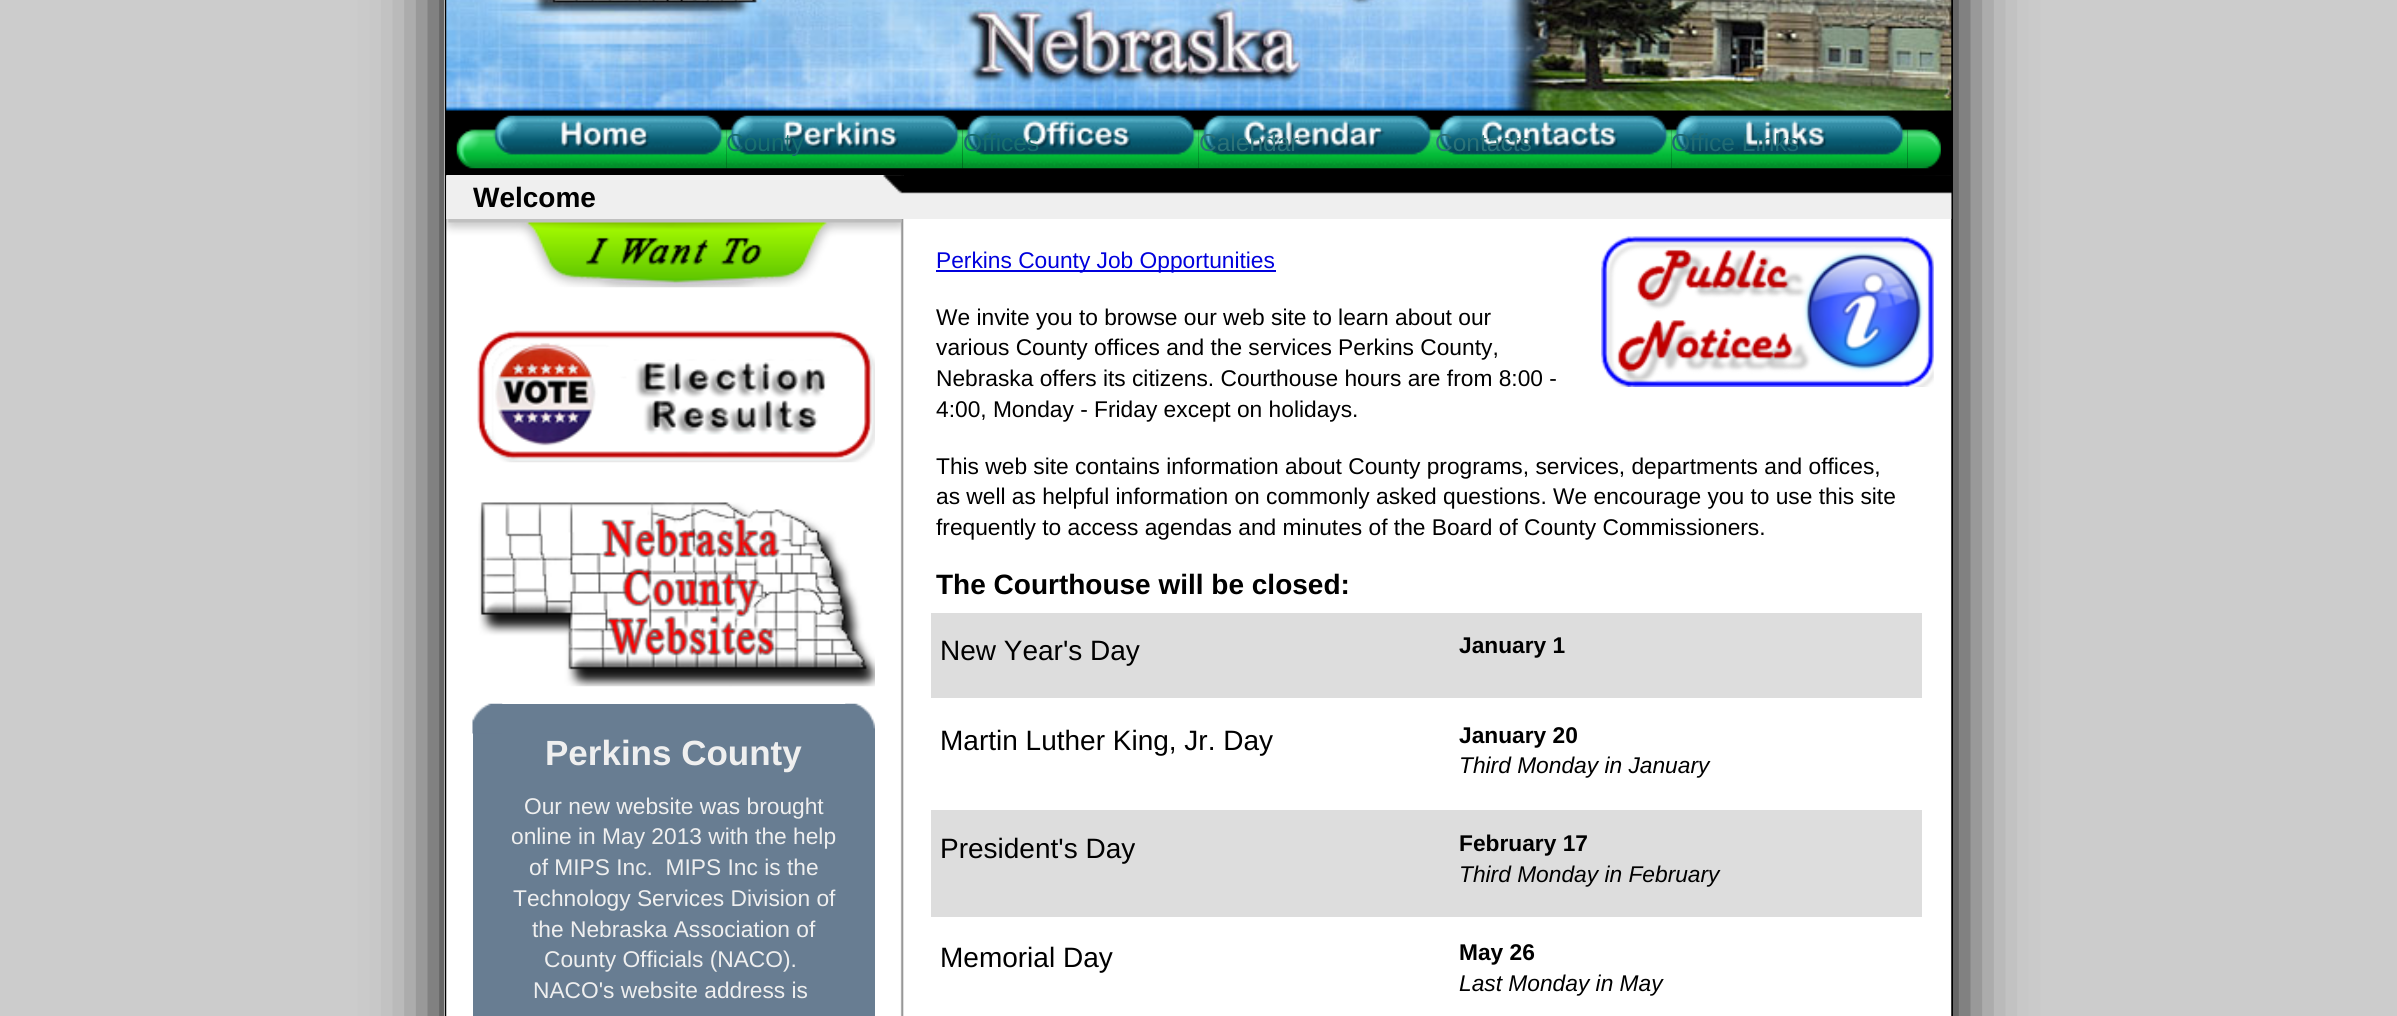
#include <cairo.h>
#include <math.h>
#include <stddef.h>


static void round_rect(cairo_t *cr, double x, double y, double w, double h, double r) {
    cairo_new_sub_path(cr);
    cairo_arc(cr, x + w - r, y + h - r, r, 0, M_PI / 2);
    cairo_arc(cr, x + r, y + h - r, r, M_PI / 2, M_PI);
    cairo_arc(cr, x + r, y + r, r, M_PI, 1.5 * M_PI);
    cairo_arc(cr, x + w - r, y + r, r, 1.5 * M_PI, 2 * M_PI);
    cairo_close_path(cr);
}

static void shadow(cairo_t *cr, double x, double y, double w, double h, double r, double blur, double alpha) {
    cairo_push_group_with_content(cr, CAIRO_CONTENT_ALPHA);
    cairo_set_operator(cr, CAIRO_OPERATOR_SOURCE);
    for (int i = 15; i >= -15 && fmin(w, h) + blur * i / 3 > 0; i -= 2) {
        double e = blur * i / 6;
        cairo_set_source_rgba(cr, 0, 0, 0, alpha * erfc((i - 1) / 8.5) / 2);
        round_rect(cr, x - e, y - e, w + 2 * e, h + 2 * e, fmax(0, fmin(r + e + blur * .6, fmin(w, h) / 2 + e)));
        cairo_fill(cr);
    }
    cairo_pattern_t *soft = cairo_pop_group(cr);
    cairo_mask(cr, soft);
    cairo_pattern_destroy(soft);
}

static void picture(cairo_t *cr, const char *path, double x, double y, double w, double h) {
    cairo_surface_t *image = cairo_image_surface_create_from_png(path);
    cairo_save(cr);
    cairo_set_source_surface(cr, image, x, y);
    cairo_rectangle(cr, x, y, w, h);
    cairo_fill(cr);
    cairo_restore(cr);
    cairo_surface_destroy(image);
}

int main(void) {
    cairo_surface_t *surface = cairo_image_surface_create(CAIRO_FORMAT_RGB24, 2397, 1016);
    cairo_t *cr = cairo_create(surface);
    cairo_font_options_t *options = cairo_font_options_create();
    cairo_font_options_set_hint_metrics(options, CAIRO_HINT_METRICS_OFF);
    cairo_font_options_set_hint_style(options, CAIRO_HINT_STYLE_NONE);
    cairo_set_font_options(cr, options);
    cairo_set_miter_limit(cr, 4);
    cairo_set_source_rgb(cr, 0.8, 0.8, 0.8);
    cairo_paint(cr);
    cairo_set_source_rgb(cr, 0, 0, 0);
    shadow(cr, 445, -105, 1508, 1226, 0, 35, 1);
    picture(cr, "img1.png", 444, 0, 460, 1016);
    cairo_set_source_rgb(cr, 0, 0, 0);
    cairo_rectangle(cr, 1951, 0, 2, 1016);
    cairo_fill(cr);
    cairo_rectangle(cr, 445, 0, 2, 1016);
    cairo_fill(cr);
    cairo_rectangle(cr, 447, 110, 1504, 65);
    cairo_fill(cr);
    picture(cr, "img2.png", 446, 0, 1506, 111);
    picture(cr, "img3.png", 456, 129, 34, 40);
    picture(cr, "img4.png", 490, 115, 237, 54);
    picture(cr, "img5.png", 726, 115, 237, 54);
    cairo_select_font_face(cr, "Liberation Sans", CAIRO_FONT_SLANT_NORMAL, CAIRO_FONT_WEIGHT_NORMAL);
    cairo_set_font_size(cr, 24.5);
    cairo_set_source_rgb(cr, 0.094, 0.431, 0.435);
    cairo_move_to(cr, 726, 151);
    cairo_show_text(cr, "County");
    picture(cr, "img6.png", 962, 115, 237, 54);
    cairo_move_to(cr, 963, 151);
    cairo_show_text(cr, "Offices");
    picture(cr, "img7.png", 1198, 115, 237, 54);
    cairo_set_source_rgb(cr, 0.169, 0.447, 0.471);
    cairo_move_to(cr, 1199, 151);
    cairo_show_text(cr, "Calendar");
    picture(cr, "img8.png", 1435, 115, 237, 54);
    cairo_move_to(cr, 1435, 151);
    cairo_show_text(cr, "Contacts");
    picture(cr, "img10.png", 1907, 129, 34, 40);
    picture(cr, "img9.png", 1671, 115, 237, 54);
    cairo_set_source_rgb(cr, 0.125, 0.42, 0.455);
    cairo_move_to(cr, 1671, 151);
    cairo_show_text(cr, "Office Links");
    picture(cr, "img11.png", 446, 175, 1506, 44);
    picture(cr, "img12.png", 446, 175, 1506, 44);
    cairo_select_font_face(cr, "Liberation Sans", CAIRO_FONT_SLANT_NORMAL, CAIRO_FONT_WEIGHT_BOLD);
    cairo_set_font_size(cr, 28);
    cairo_set_source_rgb(cr, 0, 0, 0);
    cairo_move_to(cr, 473, 207);
    cairo_show_text(cr, "Welcome");
    picture(cr, "img13.png", 446, 219, 1506, 797);
    picture(cr, "img14.png", 446, 219, 456, 69);
    picture(cr, "img15.png", 477, 330, 398, 133);
    picture(cr, "img16.png", 478, 502, 397, 185);
    cairo_set_source_rgb(cr, 0.408, 0.49, 0.573);
    cairo_rectangle(cr, 473, 704, 402, 312);
    cairo_fill(cr);
    picture(cr, "img17.png", 472, 703, 31, 31);
    picture(cr, "img18.png", 845, 703, 30, 27);
    cairo_set_font_size(cr, 35);
    cairo_set_source_rgb(cr, 0.937, 0.937, 0.937);
    cairo_move_to(cr, 545, 765);
    cairo_show_text(cr, "Perkins County");
    cairo_select_font_face(cr, "Liberation Sans", CAIRO_FONT_SLANT_NORMAL, CAIRO_FONT_WEIGHT_NORMAL);
    cairo_set_font_size(cr, 22.75);
    cairo_move_to(cr, 524, 814);
    cairo_show_text(cr, "Our new website was brought");
    cairo_move_to(cr, 511, 844);
    cairo_show_text(cr, "online in May 2013 with the help");
    cairo_move_to(cr, 529, 875);
    cairo_show_text(cr, "of MIPS Inc.  MIPS Inc is the");
    cairo_move_to(cr, 513, 906);
    cairo_show_text(cr, "Technology Services Division of");
    cairo_move_to(cr, 532, 937);
    cairo_show_text(cr, "the Nebraska Association of");
    cairo_move_to(cr, 544, 967);
    cairo_show_text(cr, "County Officials (NACO).");
    cairo_move_to(cr, 533, 998);
    cairo_show_text(cr, "NACO's website address is");
    cairo_set_source_rgb(cr, 0, 0, 0.867);
    cairo_rectangle(cr, 936, 270, 340, 2);
    cairo_fill(cr);
    cairo_move_to(cr, 936, 268);
    cairo_show_text(cr, "Perkins County Job Opportunities");
    picture(cr, "img19.png", 1601, 236, 333, 151);
    cairo_set_source_rgb(cr, 0, 0, 0);
    cairo_move_to(cr, 936, 325);
    cairo_show_text(cr, "We invite you to browse our web site to learn about our");
    cairo_move_to(cr, 936, 355);
    cairo_show_text(cr, "various County offices and the services Perkins County,");
    cairo_move_to(cr, 936, 386);
    cairo_show_text(cr, "Nebraska offers its citizens. Courthouse hours are from 8:00 -");
    cairo_move_to(cr, 936, 417);
    cairo_show_text(cr, "4:00, Monday - Friday except on holidays.");
    cairo_move_to(cr, 936, 474);
    cairo_show_text(cr, "This web site contains information about County programs, services, departments and offices,");
    cairo_move_to(cr, 936, 504);
    cairo_show_text(cr, "as well as helpful information on commonly asked questions. We encourage you to use this site");
    cairo_move_to(cr, 936, 535);
    cairo_show_text(cr, "frequently to access agendas and minutes of the Board of County Commissioners.");
    cairo_select_font_face(cr, "Liberation Sans", CAIRO_FONT_SLANT_NORMAL, CAIRO_FONT_WEIGHT_BOLD);
    cairo_set_font_size(cr, 28);
    cairo_move_to(cr, 936, 594);
    cairo_show_text(cr, "The Courthouse will be closed:");
    cairo_set_source_rgb(cr, 0.867, 0.867, 0.867);
    cairo_rectangle(cr, 931, 613, 991, 85);
    cairo_fill(cr);
    cairo_select_font_face(cr, "Liberation Sans", CAIRO_FONT_SLANT_NORMAL, CAIRO_FONT_WEIGHT_NORMAL);
    cairo_set_source_rgb(cr, 0, 0, 0);
    cairo_move_to(cr, 940, 660);
    cairo_show_text(cr, "New Year's Day");
    cairo_select_font_face(cr, "Liberation Sans", CAIRO_FONT_SLANT_NORMAL, CAIRO_FONT_WEIGHT_BOLD);
    cairo_set_font_size(cr, 22.75);
    cairo_move_to(cr, 1459, 653);
    cairo_show_text(cr, "January 1");
    cairo_select_font_face(cr, "Liberation Sans", CAIRO_FONT_SLANT_NORMAL, CAIRO_FONT_WEIGHT_NORMAL);
    cairo_set_font_size(cr, 28);
    cairo_move_to(cr, 940, 750);
    cairo_show_text(cr, "Martin Luther King, Jr. Day");
    cairo_select_font_face(cr, "Liberation Sans", CAIRO_FONT_SLANT_NORMAL, CAIRO_FONT_WEIGHT_BOLD);
    cairo_set_font_size(cr, 22.75);
    cairo_move_to(cr, 1459, 743);
    cairo_show_text(cr, "January 20");
    cairo_select_font_face(cr, "Liberation Sans", CAIRO_FONT_SLANT_ITALIC, CAIRO_FONT_WEIGHT_NORMAL);
    cairo_move_to(cr, 1459, 773);
    cairo_show_text(cr, "Third Monday in January");
    cairo_set_source_rgb(cr, 0.867, 0.867, 0.867);
    cairo_rectangle(cr, 931, 810, 991, 107);
    cairo_fill(cr);
    cairo_select_font_face(cr, "Liberation Sans", CAIRO_FONT_SLANT_NORMAL, CAIRO_FONT_WEIGHT_NORMAL);
    cairo_set_font_size(cr, 28);
    cairo_set_source_rgb(cr, 0, 0, 0);
    cairo_move_to(cr, 940, 858);
    cairo_show_text(cr, "President's Day");
    cairo_select_font_face(cr, "Liberation Sans", CAIRO_FONT_SLANT_NORMAL, CAIRO_FONT_WEIGHT_BOLD);
    cairo_set_font_size(cr, 22.75);
    cairo_move_to(cr, 1459, 851);
    cairo_show_text(cr, "February 17");
    cairo_select_font_face(cr, "Liberation Sans", CAIRO_FONT_SLANT_ITALIC, CAIRO_FONT_WEIGHT_NORMAL);
    cairo_move_to(cr, 1459, 882);
    cairo_show_text(cr, "Third Monday in February");
    cairo_select_font_face(cr, "Liberation Sans", CAIRO_FONT_SLANT_NORMAL, CAIRO_FONT_WEIGHT_NORMAL);
    cairo_set_font_size(cr, 28);
    cairo_move_to(cr, 940, 967);
    cairo_show_text(cr, "Memorial Day");
    cairo_select_font_face(cr, "Liberation Sans", CAIRO_FONT_SLANT_NORMAL, CAIRO_FONT_WEIGHT_BOLD);
    cairo_set_font_size(cr, 22.75);
    cairo_move_to(cr, 1459, 960);
    cairo_show_text(cr, "May 26");
    cairo_select_font_face(cr, "Liberation Sans", CAIRO_FONT_SLANT_ITALIC, CAIRO_FONT_WEIGHT_NORMAL);
    cairo_move_to(cr, 1459, 991);
    cairo_show_text(cr, "Last Monday in May");
    cairo_surface_write_to_png(surface, "page.png");
    cairo_font_options_destroy(options);
    cairo_destroy(cr);
    cairo_surface_destroy(surface);
    return 0;
}
